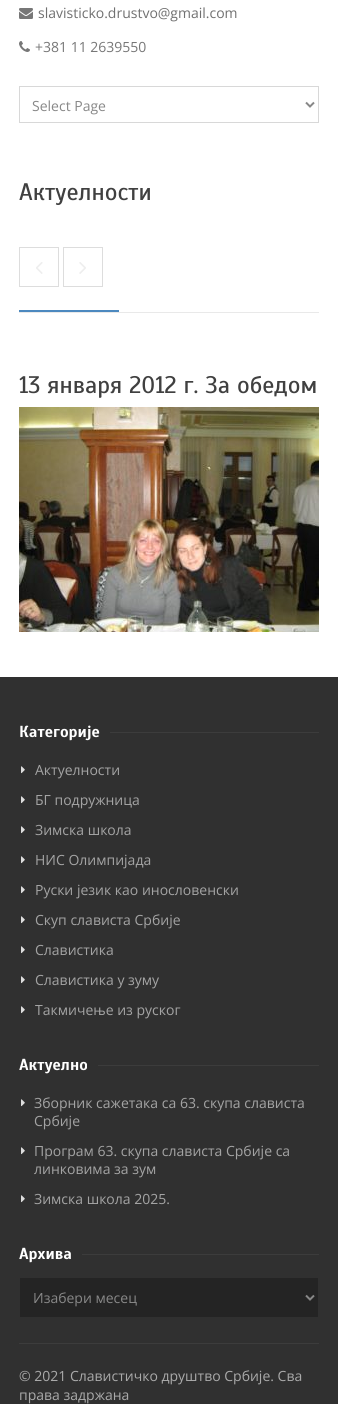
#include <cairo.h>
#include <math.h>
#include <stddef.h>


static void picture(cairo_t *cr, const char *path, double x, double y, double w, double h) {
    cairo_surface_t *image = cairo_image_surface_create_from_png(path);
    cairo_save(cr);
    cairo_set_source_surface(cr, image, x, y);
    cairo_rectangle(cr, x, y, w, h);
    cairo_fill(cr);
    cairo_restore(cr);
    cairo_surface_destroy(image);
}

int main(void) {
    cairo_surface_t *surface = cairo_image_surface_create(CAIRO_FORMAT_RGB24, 338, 1404);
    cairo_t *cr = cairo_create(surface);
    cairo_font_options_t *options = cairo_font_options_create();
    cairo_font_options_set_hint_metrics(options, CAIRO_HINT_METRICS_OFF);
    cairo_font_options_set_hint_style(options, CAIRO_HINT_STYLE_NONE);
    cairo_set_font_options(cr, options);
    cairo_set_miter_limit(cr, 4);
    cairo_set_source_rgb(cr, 1, 1, 1);
    cairo_paint(cr);
    picture(cr, "img1.png", 19, 8, 14, 11);
    cairo_select_font_face(cr, "Open Sans", CAIRO_FONT_SLANT_NORMAL, CAIRO_FONT_WEIGHT_NORMAL);
    cairo_set_font_size(cr, 14);
    cairo_set_source_rgb(cr, 0.439, 0.439, 0.439);
    cairo_move_to(cr, 38, 18);
    cairo_show_text(cr, "slavisticko.drustvo@gmail.com");
    picture(cr, "img2.png", 19, 41, 11, 11);
    cairo_set_source_rgb(cr, 0.467, 0.467, 0.467);
    cairo_move_to(cr, 35, 52);
    cairo_show_text(cr, "+381 11 2639550");
    cairo_rectangle(cr, 19.5, 86.5, 299, 36);
    cairo_set_source_rgb(cr, 0.847, 0.847, 0.847);
    cairo_set_line_width(cr, 1);
    cairo_stroke(cr);
    cairo_new_path(cr);
    cairo_move_to(cr, 306, 102.5);
    cairo_line_to(cr, 310, 106.5);
    cairo_line_to(cr, 314, 102.5);
    cairo_set_source_rgb(cr, 0.533, 0.533, 0.533);
    cairo_set_line_width(cr, 2);
    cairo_stroke(cr);
    cairo_move_to(cr, 32, 111);
    cairo_show_text(cr, "Select Page");
    cairo_set_source_rgb(cr, 0.914, 0.914, 0.914);
    cairo_rectangle(cr, 19, 312, 300, 1);
    cairo_fill(cr);
    cairo_select_font_face(cr, "Scada", CAIRO_FONT_SLANT_NORMAL, CAIRO_FONT_WEIGHT_NORMAL);
    cairo_set_font_size(cr, 24);
    cairo_set_source_rgb(cr, 0.251, 0.251, 0.251);
    cairo_move_to(cr, 19, 200);
    cairo_show_text(cr, "Актуелности");
    cairo_rectangle(cr, 19.5, 247.5, 39, 39);
    cairo_set_source_rgb(cr, 0.867, 0.867, 0.867);
    cairo_set_line_width(cr, 1);
    cairo_stroke(cr);
    picture(cr, "img3.png", 36, 262, 7, 12);
    cairo_rectangle(cr, 63.5, 247.5, 39, 39);
    cairo_stroke(cr);
    picture(cr, "img4.png", 79, 262, 7, 12);
    cairo_set_source_rgb(cr, 0.298, 0.537, 0.749);
    cairo_rectangle(cr, 19, 310, 100, 2);
    cairo_fill(cr);
    cairo_set_source_rgb(cr, 0.251, 0.251, 0.251);
    cairo_move_to(cr, 19, 393);
    cairo_show_text(cr, "13 января 2012 г. За обедом");
    picture(cr, "img5.png", 19, 407, 300, 225);
    cairo_set_source_rgb(cr, 0.188, 0.188, 0.188);
    cairo_rectangle(cr, 0, 677, 338, 727);
    cairo_fill(cr);
    cairo_set_source_rgb(cr, 0.235, 0.235, 0.235);
    cairo_rectangle(cr, 110, 732, 209, 1);
    cairo_fill(cr);
    cairo_select_font_face(cr, "Scada", CAIRO_FONT_SLANT_NORMAL, CAIRO_FONT_WEIGHT_BOLD);
    cairo_set_font_size(cr, 16);
    cairo_set_source_rgb(cr, 1, 1, 1);
    cairo_move_to(cr, 19, 737);
    cairo_show_text(cr, "Категорије");
    picture(cr, "img6.png", 21, 766, 4, 8);
    cairo_select_font_face(cr, "Open Sans", CAIRO_FONT_SLANT_NORMAL, CAIRO_FONT_WEIGHT_NORMAL);
    cairo_set_font_size(cr, 14);
    cairo_set_source_rgb(cr, 0.643, 0.643, 0.643);
    cairo_move_to(cr, 35, 775);
    cairo_show_text(cr, "Актуелности");
    picture(cr, "img6.png", 21, 796, 4, 8);
    cairo_move_to(cr, 35, 805);
    cairo_show_text(cr, "БГ подружница");
    picture(cr, "img6.png", 21, 826, 4, 8);
    cairo_move_to(cr, 35, 835);
    cairo_show_text(cr, "Зимска школа");
    picture(cr, "img6.png", 21, 856, 4, 8);
    cairo_move_to(cr, 35, 865);
    cairo_show_text(cr, "НИС Олимпијада");
    picture(cr, "img6.png", 21, 886, 4, 8);
    cairo_move_to(cr, 35, 895);
    cairo_show_text(cr, "Руски језик као инословенски");
    picture(cr, "img6.png", 21, 916, 4, 8);
    cairo_move_to(cr, 35, 925);
    cairo_show_text(cr, "Скуп слависта Србије");
    picture(cr, "img6.png", 21, 946, 4, 8);
    cairo_move_to(cr, 35, 955);
    cairo_show_text(cr, "Славистика");
    picture(cr, "img6.png", 21, 976, 4, 8);
    cairo_move_to(cr, 35, 985);
    cairo_show_text(cr, "Славистика у зуму");
    picture(cr, "img6.png", 21, 1006, 4, 8);
    cairo_move_to(cr, 35, 1015);
    cairo_show_text(cr, "Такмичење из руског");
    cairo_set_source_rgb(cr, 0.235, 0.235, 0.235);
    cairo_rectangle(cr, 98, 1065, 221, 1);
    cairo_fill(cr);
    cairo_select_font_face(cr, "Scada", CAIRO_FONT_SLANT_NORMAL, CAIRO_FONT_WEIGHT_BOLD);
    cairo_set_font_size(cr, 16);
    cairo_set_source_rgb(cr, 1, 1, 1);
    cairo_move_to(cr, 19, 1070);
    cairo_show_text(cr, "Актуелно");
    picture(cr, "img6.png", 21, 1099, 4, 8);
    cairo_select_font_face(cr, "Open Sans", CAIRO_FONT_SLANT_NORMAL, CAIRO_FONT_WEIGHT_NORMAL);
    cairo_set_font_size(cr, 14);
    cairo_set_source_rgb(cr, 0.643, 0.643, 0.643);
    cairo_move_to(cr, 34, 1108);
    cairo_show_text(cr, "Зборник сажетака са 63. скупа слависта");
    cairo_move_to(cr, 34, 1126);
    cairo_show_text(cr, "Србије");
    picture(cr, "img6.png", 21, 1147, 4, 8);
    cairo_move_to(cr, 34, 1156);
    cairo_show_text(cr, "Програм 63. скупа слависта Србије са");
    cairo_move_to(cr, 34, 1174);
    cairo_show_text(cr, "линковима за зум");
    picture(cr, "img6.png", 21, 1195, 4, 8);
    cairo_move_to(cr, 34, 1204);
    cairo_show_text(cr, "Зимска школа 2025.");
    cairo_set_source_rgb(cr, 0.235, 0.235, 0.235);
    cairo_rectangle(cr, 82, 1254, 237, 1);
    cairo_fill(cr);
    cairo_select_font_face(cr, "Scada", CAIRO_FONT_SLANT_NORMAL, CAIRO_FONT_WEIGHT_BOLD);
    cairo_set_font_size(cr, 16);
    cairo_set_source_rgb(cr, 1, 1, 1);
    cairo_move_to(cr, 19, 1259);
    cairo_show_text(cr, "Архива");
    cairo_set_source_rgb(cr, 0.141, 0.141, 0.141);
    cairo_rectangle(cr, 20, 1278, 298, 39);
    cairo_fill(cr);
    cairo_new_path(cr);
    cairo_move_to(cr, 306, 1295.5);
    cairo_line_to(cr, 310, 1299.5);
    cairo_line_to(cr, 314, 1295.5);
    cairo_set_source_rgb(cr, 0.533, 0.533, 0.533);
    cairo_set_line_width(cr, 2);
    cairo_stroke(cr);
    cairo_select_font_face(cr, "Open Sans", CAIRO_FONT_SLANT_NORMAL, CAIRO_FONT_WEIGHT_NORMAL);
    cairo_set_font_size(cr, 14);
    cairo_move_to(cr, 33, 1303);
    cairo_show_text(cr, "Изабери месец");
    cairo_set_source_rgb(cr, 0.235, 0.235, 0.235);
    cairo_rectangle(cr, 19, 1343, 300, 1);
    cairo_fill(cr);
    cairo_set_source_rgb(cr, 0.667, 0.667, 0.667);
    cairo_move_to(cr, 19, 1381);
    cairo_show_text(cr, "© 2021 Славистичко друштво Србије. Сва");
    cairo_move_to(cr, 19, 1400);
    cairo_show_text(cr, "права задржана");
    cairo_surface_write_to_png(surface, "page.png");
    cairo_font_options_destroy(options);
    cairo_destroy(cr);
    cairo_surface_destroy(surface);
    return 0;
}
